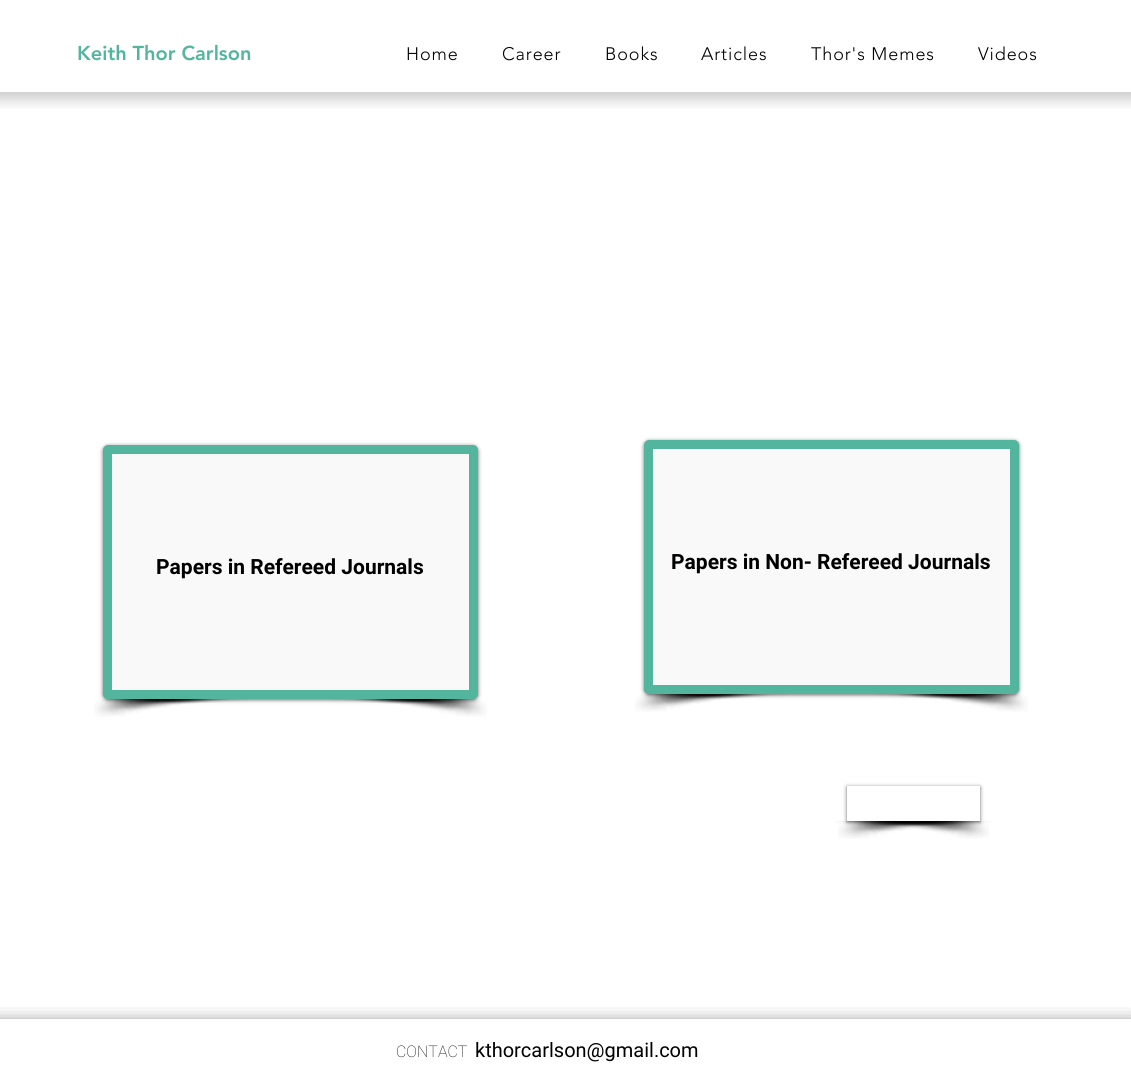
#include <cairo.h>
#include <math.h>
#include <stddef.h>


static void spaced_text(cairo_t *cr, double x, double y, const char *s, double letter, double word) {
    cairo_move_to(cr, x, y);
    while (*s) {
        char ch[5] = {0};
        int n = 0;
        do ch[n++] = *s++; while ((*s & 0xC0) == 0x80);
        cairo_show_text(cr, ch);
        cairo_rel_move_to(cr, letter + word * (*ch == ' '), 0);
    }
}

static void round_rect(cairo_t *cr, double x, double y, double w, double h, double r) {
    cairo_new_sub_path(cr);
    cairo_arc(cr, x + w - r, y + h - r, r, 0, M_PI / 2);
    cairo_arc(cr, x + r, y + h - r, r, M_PI / 2, M_PI);
    cairo_arc(cr, x + r, y + r, r, M_PI, 1.5 * M_PI);
    cairo_arc(cr, x + w - r, y + r, r, 1.5 * M_PI, 2 * M_PI);
    cairo_close_path(cr);
}

static void shadow(cairo_t *cr, double x, double y, double w, double h, double r, double blur, double alpha) {
    cairo_push_group_with_content(cr, CAIRO_CONTENT_ALPHA);
    cairo_set_operator(cr, CAIRO_OPERATOR_SOURCE);
    for (int i = 15; i >= -15 && fmin(w, h) + blur * i / 3 > 0; i -= 2) {
        double e = blur * i / 6;
        cairo_set_source_rgba(cr, 0, 0, 0, alpha * erfc((i - 1) / 8.5) / 2);
        round_rect(cr, x - e, y - e, w + 2 * e, h + 2 * e, fmax(0, fmin(r + e + blur * .6, fmin(w, h) / 2 + e)));
        cairo_fill(cr);
    }
    cairo_pattern_t *soft = cairo_pop_group(cr);
    cairo_mask(cr, soft);
    cairo_pattern_destroy(soft);
}

static void picture(cairo_t *cr, const char *path, double x, double y, double w, double h) {
    cairo_surface_t *image = cairo_image_surface_create_from_png(path);
    cairo_save(cr);
    cairo_set_source_surface(cr, image, x, y);
    cairo_rectangle(cr, x, y, w, h);
    cairo_fill(cr);
    cairo_restore(cr);
    cairo_surface_destroy(image);
}

int main(void) {
    cairo_surface_t *surface = cairo_image_surface_create(CAIRO_FORMAT_RGB24, 1131, 1066);
    cairo_t *cr = cairo_create(surface);
    cairo_font_options_t *options = cairo_font_options_create();
    cairo_font_options_set_hint_metrics(options, CAIRO_HINT_METRICS_OFF);
    cairo_font_options_set_hint_style(options, CAIRO_HINT_STYLE_NONE);
    cairo_set_font_options(cr, options);
    cairo_set_miter_limit(cr, 4);
    cairo_set_source_rgb(cr, 1, 1, 1);
    cairo_paint(cr);
    cairo_save(cr);
    cairo_rectangle(cr, 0, 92, 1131, 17);
    cairo_clip(cr);
    cairo_set_source_rgb(cr, 0, 0, 0);
    shadow(cr, -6, -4, 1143, 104, 0, 7, 0.2);
    cairo_restore(cr);
    cairo_select_font_face(cr, "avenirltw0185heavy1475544 Black", CAIRO_FONT_SLANT_NORMAL, CAIRO_FONT_WEIGHT_NORMAL);
    cairo_set_font_size(cr, 20);
    cairo_set_source_rgb(cr, 0.325, 0.71, 0.616);
    cairo_move_to(cr, 77, 60);
    cairo_show_text(cr, "Keith Thor Carlson");
    cairo_select_font_face(cr, "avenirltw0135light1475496 Light", CAIRO_FONT_SLANT_NORMAL, CAIRO_FONT_WEIGHT_NORMAL);
    cairo_set_font_size(cr, 18);
    cairo_set_source_rgb(cr, 0, 0, 0);
    spaced_text(cr, 406, 60, "Home", 0.9, 0);
    spaced_text(cr, 502, 60, "Career", 0.9, 0);
    spaced_text(cr, 605, 60, "Books", 0.9, 0);
    spaced_text(cr, 701, 60, "Articles", 0.9, 0);
    spaced_text(cr, 811, 60, "Thor's Memes", 0.9, 0);
    spaced_text(cr, 978, 60, "Videos", 0.9, 0);
    picture(cr, "img1.png", 94, 699, 154, 18);
    picture(cr, "img2.png", 333, 699, 154, 18);
    cairo_set_source_rgb(cr, 0, 0, 0);
    shadow(cr, 103, 446, 375, 254, 5, 2, 0.6);
    cairo_set_source_rgb(cr, 0.973, 0.973, 0.973);
    round_rect(cr, 107.5, 449.5, 366, 245, 0.5);
    cairo_fill_preserve(cr);
    cairo_set_source_rgb(cr, 0.325, 0.71, 0.616);
    cairo_set_line_width(cr, 9);
    cairo_stroke(cr);
    cairo_select_font_face(cr, "Roboto", CAIRO_FONT_SLANT_NORMAL, CAIRO_FONT_WEIGHT_BOLD);
    cairo_set_font_size(cr, 21);
    cairo_set_source_rgb(cr, 0, 0, 0);
    cairo_move_to(cr, 156, 574);
    cairo_show_text(cr, "Papers in Refereed Journals");
    picture(cr, "img1.png", 635, 694, 154, 18);
    picture(cr, "img2.png", 874, 694, 154, 18);
    cairo_set_source_rgb(cr, 0, 0, 0);
    shadow(cr, 644, 441, 375, 254, 5, 2, 0.6);
    cairo_set_source_rgb(cr, 0.973, 0.973, 0.973);
    round_rect(cr, 648.5, 444.5, 366, 245, 0.5);
    cairo_fill_preserve(cr);
    cairo_set_source_rgb(cr, 0.325, 0.71, 0.616);
    cairo_stroke(cr);
    cairo_set_source_rgb(cr, 0, 0, 0);
    cairo_move_to(cr, 671, 569);
    cairo_show_text(cr, "Papers in Non- Refereed Journals");
    picture(cr, "img1.png", 838, 821, 154, 18);
    picture(cr, "img3.png", 835, 821, 154, 18);
    cairo_save(cr);
    cairo_set_fill_rule(cr, CAIRO_FILL_RULE_EVEN_ODD);
    cairo_new_path(cr);
    cairo_move_to(cr, 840, 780);
    cairo_line_to(cr, 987, 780);
    cairo_line_to(cr, 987, 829);
    cairo_line_to(cr, 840, 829);
    cairo_close_path(cr);
    cairo_move_to(cr, 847, 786);
    cairo_line_to(cr, 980, 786);
    cairo_line_to(cr, 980, 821);
    cairo_line_to(cr, 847, 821);
    cairo_close_path(cr);
    cairo_clip(cr);
    cairo_set_source_rgb(cr, 0, 0, 0);
    shadow(cr, 847, 787, 133, 35, 0, 2, 0.6);
    cairo_restore(cr);
    cairo_save(cr);
    cairo_rectangle(cr, 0, 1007, 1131, 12);
    cairo_clip(cr);
    cairo_set_source_rgb(cr, 0, 0, 0);
    shadow(cr, -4, 1026, 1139, 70, 0, 10, 0.75);
    cairo_restore(cr);
    cairo_select_font_face(cr, "Roboto Thin", CAIRO_FONT_SLANT_NORMAL, CAIRO_FONT_WEIGHT_NORMAL);
    cairo_set_font_size(cr, 16);
    cairo_move_to(cr, 396, 1057);
    cairo_show_text(cr, "CONTACT");
    cairo_select_font_face(cr, "Roboto", CAIRO_FONT_SLANT_NORMAL, CAIRO_FONT_WEIGHT_NORMAL);
    cairo_set_font_size(cr, 20);
    cairo_move_to(cr, 475, 1057);
    cairo_show_text(cr, "kthorcarlson@gmail.com");
    cairo_surface_write_to_png(surface, "page.png");
    cairo_font_options_destroy(options);
    cairo_destroy(cr);
    cairo_surface_destroy(surface);
    return 0;
}
